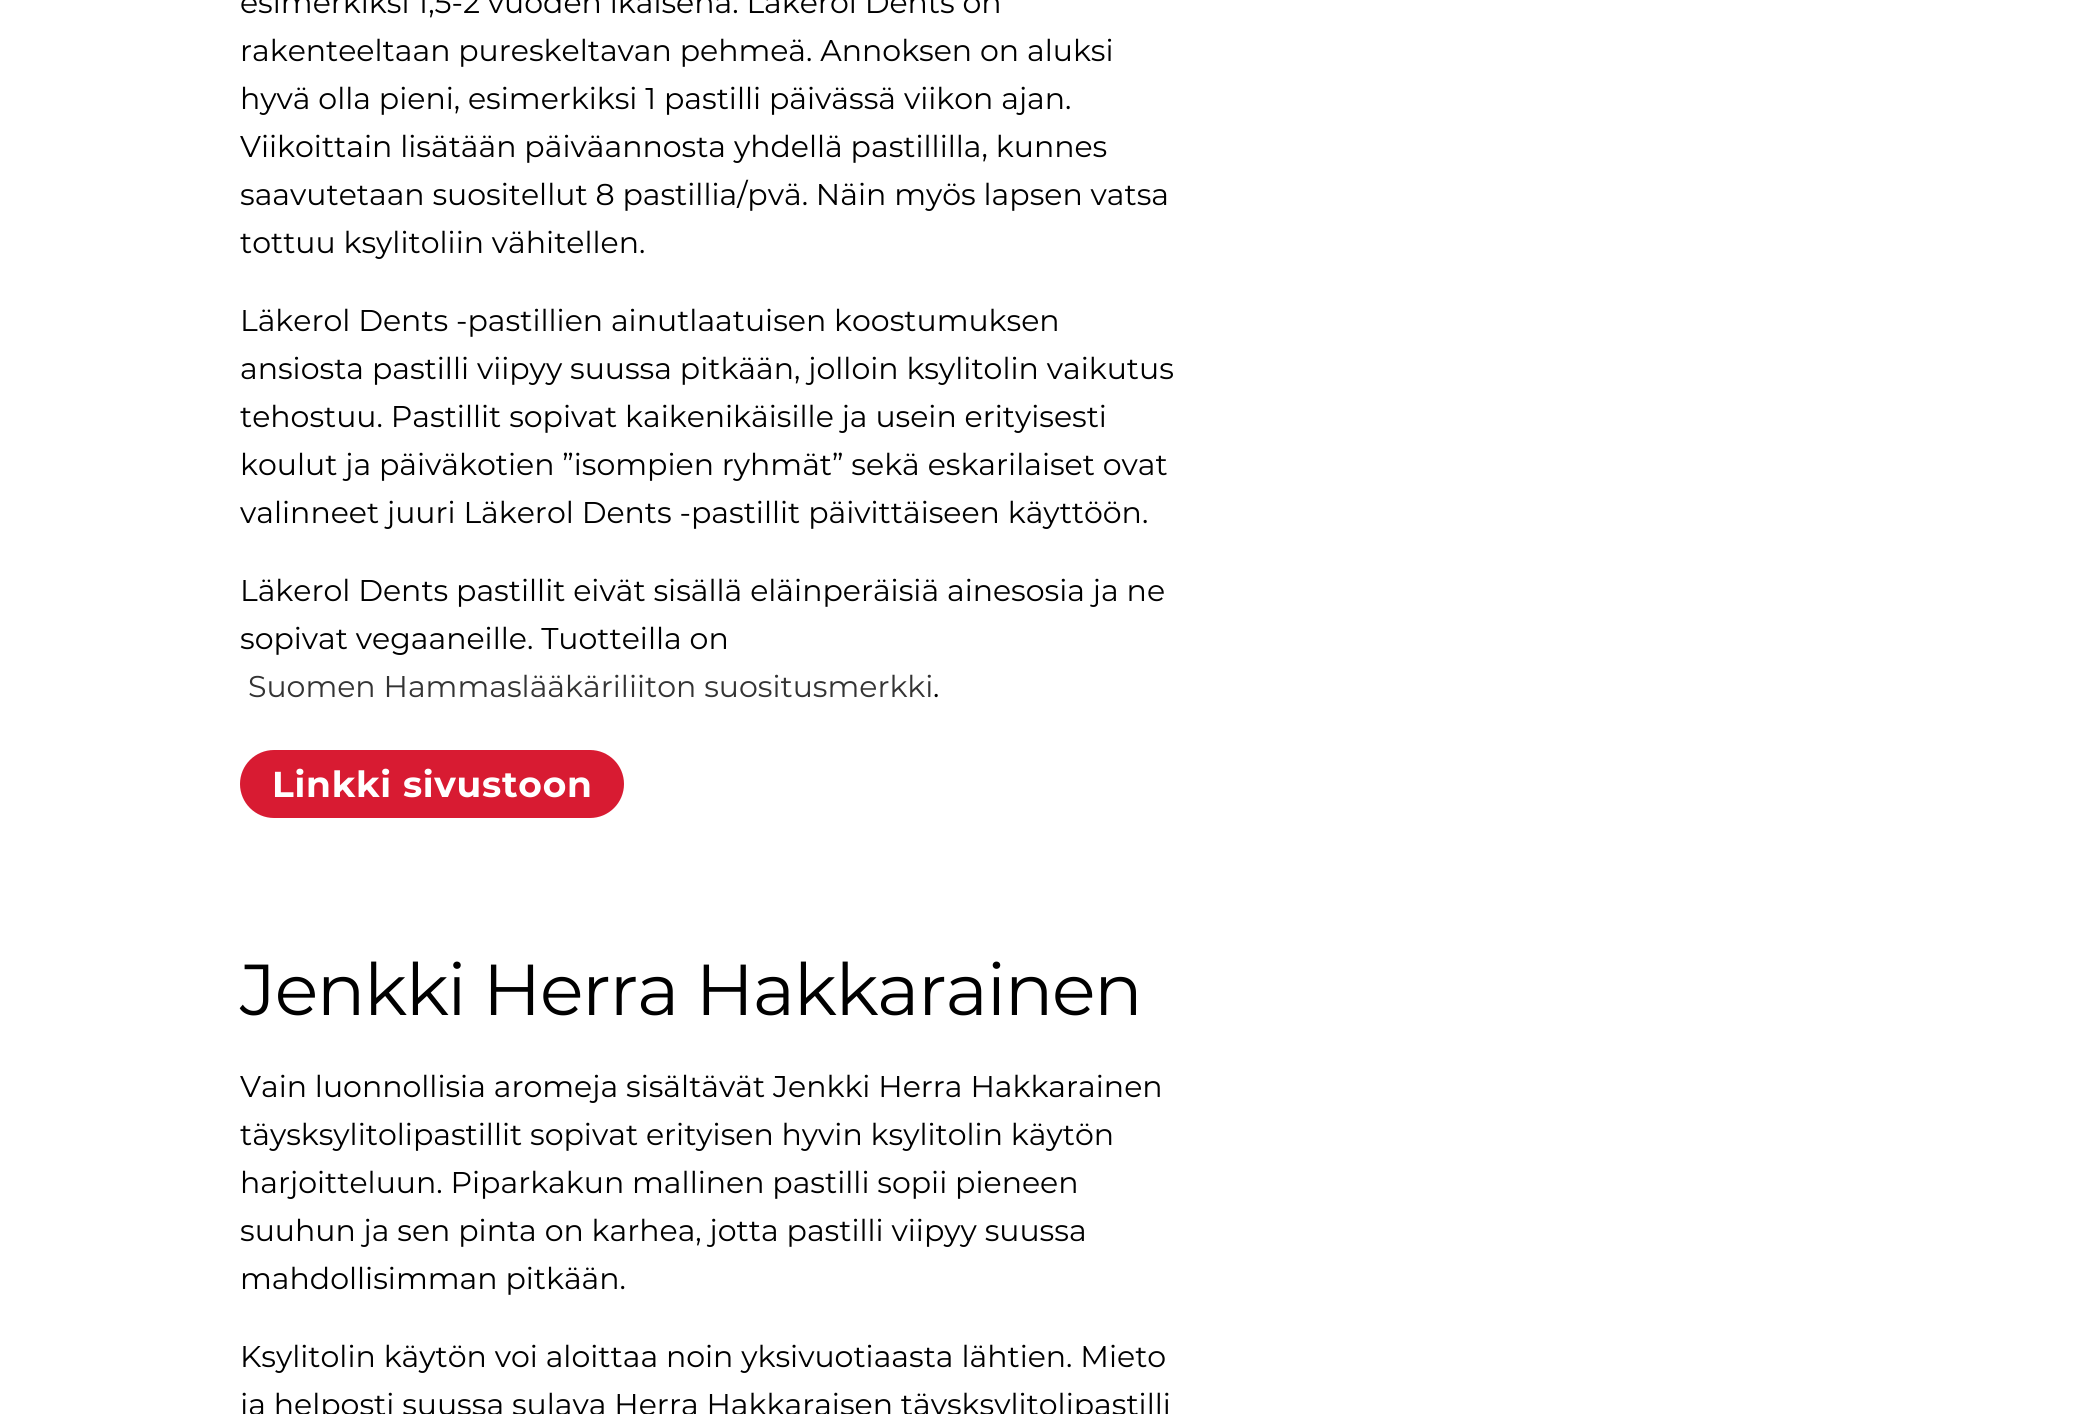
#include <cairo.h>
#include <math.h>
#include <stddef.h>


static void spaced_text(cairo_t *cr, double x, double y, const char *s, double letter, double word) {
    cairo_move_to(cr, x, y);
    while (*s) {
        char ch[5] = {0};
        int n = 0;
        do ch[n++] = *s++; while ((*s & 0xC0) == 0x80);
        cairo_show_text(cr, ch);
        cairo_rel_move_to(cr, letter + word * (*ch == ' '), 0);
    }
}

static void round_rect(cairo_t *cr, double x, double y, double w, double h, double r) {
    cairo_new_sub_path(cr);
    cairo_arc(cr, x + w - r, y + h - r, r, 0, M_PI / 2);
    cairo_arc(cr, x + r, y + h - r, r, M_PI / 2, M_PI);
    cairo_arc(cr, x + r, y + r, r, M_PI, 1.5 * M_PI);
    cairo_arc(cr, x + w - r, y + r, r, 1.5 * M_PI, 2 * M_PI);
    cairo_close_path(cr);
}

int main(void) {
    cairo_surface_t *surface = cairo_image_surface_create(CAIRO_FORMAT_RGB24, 2098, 1414);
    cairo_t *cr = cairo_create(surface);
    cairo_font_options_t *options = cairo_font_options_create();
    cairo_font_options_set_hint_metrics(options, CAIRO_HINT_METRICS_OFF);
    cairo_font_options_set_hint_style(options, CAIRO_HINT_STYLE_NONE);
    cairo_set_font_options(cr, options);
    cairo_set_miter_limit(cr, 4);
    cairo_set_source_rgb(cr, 1, 1, 1);
    cairo_paint(cr);
    cairo_select_font_face(cr, "Montserrat", CAIRO_FONT_SLANT_NORMAL, CAIRO_FONT_WEIGHT_NORMAL);
    cairo_set_font_size(cr, 30);
    cairo_set_source_rgb(cr, 0, 0, 0);
    cairo_move_to(cr, 240, 13);
    cairo_show_text(cr, "esimerkiksi 1,5-2 vuoden ikäisenä. Läkerol Dents on");
    cairo_move_to(cr, 240, 61);
    cairo_show_text(cr, "rakenteeltaan pureskeltavan pehmeä. Annoksen on aluksi");
    cairo_move_to(cr, 240, 109);
    cairo_show_text(cr, "hyvä olla pieni, esimerkiksi 1 pastilli päivässä viikon ajan.");
    cairo_move_to(cr, 240, 157);
    cairo_show_text(cr, "Viikoittain lisätään päiväannosta yhdellä pastillilla, kunnes");
    cairo_move_to(cr, 240, 205);
    cairo_show_text(cr, "saavutetaan suositellut 8 pastillia/pvä. Näin myös lapsen vatsa");
    cairo_move_to(cr, 240, 253);
    cairo_show_text(cr, "tottuu ksylitoliin vähitellen.");
    cairo_move_to(cr, 240, 331);
    cairo_show_text(cr, "Läkerol Dents -pastillien ainutlaatuisen koostumuksen");
    cairo_move_to(cr, 240, 379);
    cairo_show_text(cr, "ansiosta pastilli viipyy suussa pitkään, jolloin ksylitolin vaikutus");
    cairo_move_to(cr, 240, 427);
    cairo_show_text(cr, "tehostuu. Pastillit sopivat kaikenikäisille ja usein erityisesti");
    cairo_move_to(cr, 240, 475);
    cairo_show_text(cr, "koulut ja päiväkotien ”isompien ryhmät” sekä eskarilaiset ovat");
    cairo_move_to(cr, 240, 523);
    cairo_show_text(cr, "valinneet juuri Läkerol Dents -pastillit päivittäiseen käyttöön.");
    cairo_move_to(cr, 240, 601);
    cairo_show_text(cr, "Läkerol Dents pastillit eivät sisällä eläinperäisiä ainesosia ja ne");
    cairo_move_to(cr, 240, 649);
    cairo_show_text(cr, "sopivat vegaaneille. Tuotteilla on");
    cairo_set_source_rgb(cr, 0.2, 0.2, 0.2);
    cairo_move_to(cr, 248, 697);
    cairo_show_text(cr, "Suomen Hammaslääkäriliiton suositusmerkki");
    cairo_set_source_rgb(cr, 0, 0, 0);
    cairo_move_to(cr, 933, 697);
    cairo_show_text(cr, ".");
    cairo_set_source_rgb(cr, 0.847, 0.106, 0.196);
    round_rect(cr, 240, 750, 384, 68, 34);
    cairo_fill(cr);
    cairo_select_font_face(cr, "Montserrat", CAIRO_FONT_SLANT_NORMAL, CAIRO_FONT_WEIGHT_BOLD);
    cairo_set_font_size(cr, 36);
    cairo_set_source_rgb(cr, 1, 1, 1);
    spaced_text(cr, 272, 797, "Linkki sivustoon", 0.75, 0);
    cairo_select_font_face(cr, "Montserrat", CAIRO_FONT_SLANT_NORMAL, CAIRO_FONT_WEIGHT_NORMAL);
    cairo_set_font_size(cr, 72);
    cairo_set_source_rgb(cr, 0, 0, 0);
    spaced_text(cr, 240, 1015, "Jenkki Herra Hakkarainen", -1.4, 0);
    cairo_set_font_size(cr, 30);
    cairo_move_to(cr, 240, 1097);
    cairo_show_text(cr, "Vain luonnollisia aromeja sisältävät Jenkki Herra Hakkarainen");
    cairo_move_to(cr, 240, 1145);
    cairo_show_text(cr, "täysksylitolipastillit sopivat erityisen hyvin ksylitolin käytön");
    cairo_move_to(cr, 240, 1193);
    cairo_show_text(cr, "harjoitteluun. Piparkakun mallinen pastilli sopii pieneen");
    cairo_move_to(cr, 240, 1241);
    cairo_show_text(cr, "suuhun ja sen pinta on karhea, jotta pastilli viipyy suussa");
    cairo_move_to(cr, 240, 1289);
    cairo_show_text(cr, "mahdollisimman pitkään.");
    cairo_move_to(cr, 240, 1367);
    cairo_show_text(cr, "Ksylitolin käytön voi aloittaa noin yksivuotiaasta lähtien. Mieto");
    cairo_move_to(cr, 240, 1415);
    cairo_show_text(cr, "ja helposti suussa sulava Herra Hakkaraisen täysksylitolipastilli");
    cairo_surface_write_to_png(surface, "page.png");
    cairo_font_options_destroy(options);
    cairo_destroy(cr);
    cairo_surface_destroy(surface);
    return 0;
}
